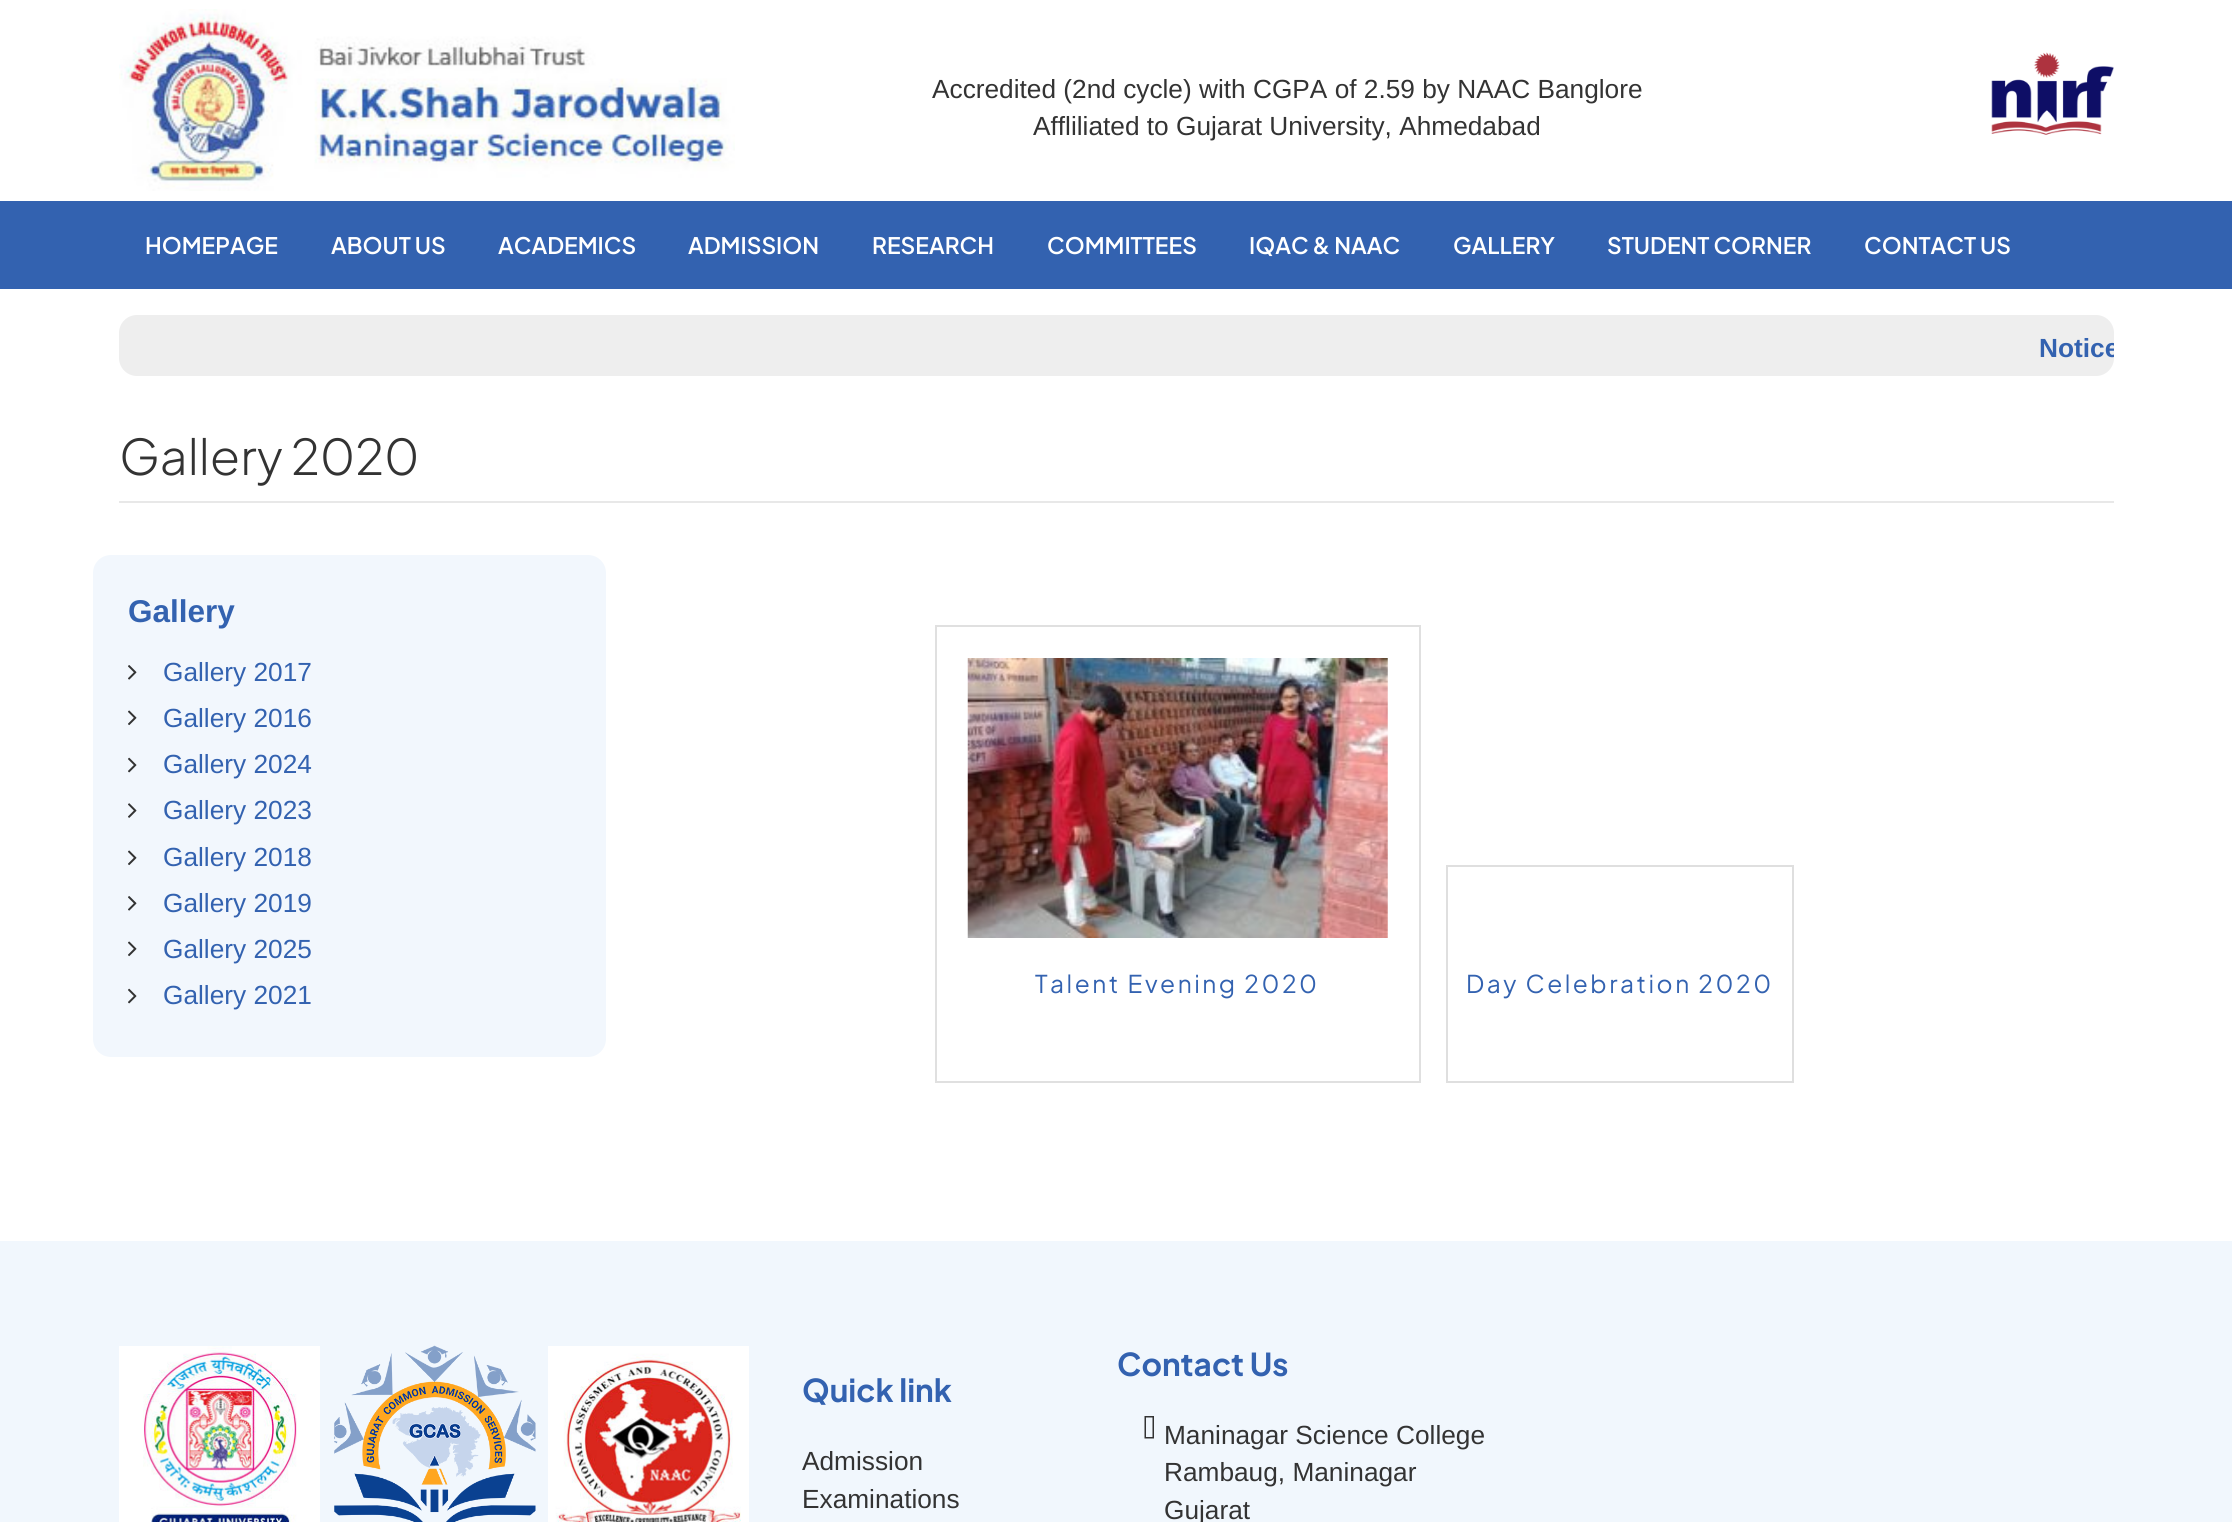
#include <cairo.h>
#include <math.h>
#include <stddef.h>


static void spaced_text(cairo_t *cr, double x, double y, const char *s, double letter, double word) {
    cairo_move_to(cr, x, y);
    while (*s) {
        char ch[5] = {0};
        int n = 0;
        do ch[n++] = *s++; while ((*s & 0xC0) == 0x80);
        cairo_show_text(cr, ch);
        cairo_rel_move_to(cr, letter + word * (*ch == ' '), 0);
    }
}

static void round_rect(cairo_t *cr, double x, double y, double w, double h, double r) {
    cairo_new_sub_path(cr);
    cairo_arc(cr, x + w - r, y + h - r, r, 0, M_PI / 2);
    cairo_arc(cr, x + r, y + h - r, r, M_PI / 2, M_PI);
    cairo_arc(cr, x + r, y + r, r, M_PI, 1.5 * M_PI);
    cairo_arc(cr, x + w - r, y + r, r, 1.5 * M_PI, 2 * M_PI);
    cairo_close_path(cr);
}

static void picture(cairo_t *cr, const char *path, double x, double y, double w, double h) {
    cairo_surface_t *image = cairo_image_surface_create_from_png(path);
    cairo_save(cr);
    cairo_set_source_surface(cr, image, x, y);
    cairo_rectangle(cr, x, y, w, h);
    cairo_fill(cr);
    cairo_restore(cr);
    cairo_surface_destroy(image);
}

int main(void) {
    cairo_surface_t *surface = cairo_image_surface_create(CAIRO_FORMAT_RGB24, 2232, 1522);
    cairo_t *cr = cairo_create(surface);
    cairo_font_options_t *options = cairo_font_options_create();
    cairo_font_options_set_hint_metrics(options, CAIRO_HINT_METRICS_OFF);
    cairo_font_options_set_hint_style(options, CAIRO_HINT_STYLE_NONE);
    cairo_set_font_options(cr, options);
    cairo_set_miter_limit(cr, 4);
    cairo_set_source_rgb(cr, 1, 1, 1);
    cairo_paint(cr);
    picture(cr, "img1.png", 119, 9, 616, 182);
    cairo_select_font_face(cr, "Liberation Sans", CAIRO_FONT_SLANT_NORMAL, CAIRO_FONT_WEIGHT_NORMAL);
    cairo_set_font_size(cr, 26.25);
    cairo_set_source_rgb(cr, 0.2, 0.2, 0.2);
    cairo_move_to(cr, 932, 98);
    cairo_show_text(cr, "Accredited (2nd cycle) with CGPA of 2.59 by NAAC Banglore");
    cairo_move_to(cr, 1033, 135);
    cairo_show_text(cr, "Affliliated to Gujarat University, Ahmedabad");
    picture(cr, "img2.png", 1991, 52, 123, 83);
    cairo_set_source_rgb(cr, 0.2, 0.384, 0.69);
    cairo_rectangle(cr, 0, 201, 2232, 88);
    cairo_fill(cr);
    cairo_select_font_face(cr, "Plus Jakarta Sans SemiBold", CAIRO_FONT_SLANT_NORMAL, CAIRO_FONT_WEIGHT_NORMAL);
    cairo_set_font_size(cr, 22.75);
    cairo_set_source_rgb(cr, 1, 1, 1);
    cairo_move_to(cr, 145, 254);
    cairo_show_text(cr, "HOMEPAGE");
    cairo_move_to(cr, 331, 254);
    cairo_show_text(cr, "ABOUT US");
    cairo_move_to(cr, 498, 254);
    cairo_show_text(cr, "ACADEMICS");
    cairo_move_to(cr, 688, 254);
    cairo_show_text(cr, "ADMISSION");
    cairo_move_to(cr, 872, 254);
    cairo_show_text(cr, "RESEARCH");
    cairo_move_to(cr, 1047, 254);
    cairo_show_text(cr, "COMMITTEES");
    cairo_move_to(cr, 1249, 254);
    cairo_show_text(cr, "IQAC & NAAC");
    cairo_move_to(cr, 1453, 254);
    cairo_show_text(cr, "GALLERY");
    cairo_move_to(cr, 1607, 254);
    cairo_show_text(cr, "STUDENT CORNER");
    cairo_move_to(cr, 1864, 254);
    cairo_show_text(cr, "CONTACT US");
    cairo_set_source_rgb(cr, 0.933, 0.933, 0.933);
    round_rect(cr, 119, 315, 1995, 61, 18);
    cairo_fill(cr);
    cairo_save(cr);
    cairo_rectangle(cr, 119, 315, 1995, 53);
    cairo_clip(cr);
    cairo_select_font_face(cr, "Liberation Sans", CAIRO_FONT_SLANT_NORMAL, CAIRO_FONT_WEIGHT_BOLD);
    cairo_set_font_size(cr, 26.25);
    cairo_set_source_rgb(cr, 0.2, 0.384, 0.69);
    cairo_move_to(cr, 2039, 357);
    cairo_show_text(cr, "Notice");
    cairo_restore(cr);
    cairo_set_source_rgb(cr, 0.91, 0.91, 0.91);
    cairo_rectangle(cr, 119, 501, 1995, 2);
    cairo_fill(cr);
    cairo_select_font_face(cr, "Plus Jakarta Sans Light", CAIRO_FONT_SLANT_NORMAL, CAIRO_FONT_WEIGHT_NORMAL);
    cairo_set_font_size(cr, 49);
    cairo_set_source_rgb(cr, 0.2, 0.2, 0.2);
    cairo_move_to(cr, 119, 475);
    cairo_show_text(cr, "Gallery 2020");
    cairo_set_source_rgb(cr, 0.949, 0.965, 0.992);
    round_rect(cr, 93, 555, 513, 502, 18);
    cairo_fill(cr);
    cairo_select_font_face(cr, "Liberation Sans", CAIRO_FONT_SLANT_NORMAL, CAIRO_FONT_WEIGHT_BOLD);
    cairo_set_font_size(cr, 31.5);
    cairo_set_source_rgb(cr, 0.2, 0.384, 0.69);
    cairo_move_to(cr, 128, 622);
    cairo_show_text(cr, "Gallery");
    picture(cr, "img3.png", 128, 665, 9, 15);
    cairo_select_font_face(cr, "Liberation Sans", CAIRO_FONT_SLANT_NORMAL, CAIRO_FONT_WEIGHT_NORMAL);
    cairo_set_font_size(cr, 26.25);
    cairo_move_to(cr, 163, 681);
    cairo_show_text(cr, "Gallery 2017");
    picture(cr, "img4.png", 128, 710, 9, 16);
    cairo_move_to(cr, 163, 727);
    cairo_show_text(cr, "Gallery 2016");
    picture(cr, "img5.png", 128, 757, 9, 16);
    cairo_move_to(cr, 163, 773);
    cairo_show_text(cr, "Gallery 2024");
    picture(cr, "img6.png", 128, 803, 9, 15);
    cairo_move_to(cr, 163, 819);
    cairo_show_text(cr, "Gallery 2023");
    picture(cr, "img4.png", 128, 850, 9, 16);
    cairo_move_to(cr, 163, 866);
    cairo_show_text(cr, "Gallery 2018");
    picture(cr, "img3.png", 128, 896, 9, 15);
    cairo_move_to(cr, 163, 912);
    cairo_show_text(cr, "Gallery 2019");
    picture(cr, "img4.png", 128, 941, 9, 16);
    cairo_move_to(cr, 163, 958);
    cairo_show_text(cr, "Gallery 2025");
    picture(cr, "img5.png", 128, 988, 9, 16);
    cairo_move_to(cr, 163, 1004);
    cairo_show_text(cr, "Gallery 2021");
    cairo_rectangle(cr, 936, 626, 484, 456);
    cairo_set_source_rgb(cr, 0.878, 0.878, 0.878);
    cairo_stroke(cr);
    picture(cr, "img7.png", 967, 658, 421, 280);
    cairo_select_font_face(cr, "Plus Jakarta Sans", CAIRO_FONT_SLANT_NORMAL, CAIRO_FONT_WEIGHT_NORMAL);
    cairo_set_font_size(cr, 24.5);
    cairo_set_source_rgb(cr, 0.2, 0.384, 0.69);
    spaced_text(cr, 1035, 993, "Talent Evening 2020", 2.5, 0);
    cairo_rectangle(cr, 1447, 866, 346, 216);
    cairo_set_source_rgb(cr, 0.875, 0.875, 0.875);
    cairo_stroke(cr);
    cairo_set_source_rgb(cr, 0.2, 0.384, 0.69);
    spaced_text(cr, 1466, 993, "Day Celebration 2020", 2.5, 0);
    cairo_set_source_rgb(cr, 0.945, 0.965, 0.992);
    cairo_rectangle(cr, 0, 1241, 2232, 281);
    cairo_fill(cr);
    picture(cr, "img8.png", 119, 1346, 201, 176);
    picture(cr, "img9.png", 334, 1345, 202, 177);
    picture(cr, "img10.png", 548, 1346, 201, 176);
    cairo_select_font_face(cr, "Plus Jakarta Sans", CAIRO_FONT_SLANT_NORMAL, CAIRO_FONT_WEIGHT_BOLD);
    cairo_set_font_size(cr, 31.5);
    cairo_set_source_rgb(cr, 0.2, 0.384, 0.69);
    cairo_move_to(cr, 802, 1402);
    cairo_show_text(cr, "Quick link");
    cairo_select_font_face(cr, "Liberation Sans", CAIRO_FONT_SLANT_NORMAL, CAIRO_FONT_WEIGHT_NORMAL);
    cairo_set_font_size(cr, 26.25);
    cairo_set_source_rgb(cr, 0.2, 0.2, 0.2);
    cairo_move_to(cr, 802, 1470);
    cairo_show_text(cr, "Admission");
    cairo_move_to(cr, 802, 1508);
    cairo_show_text(cr, "Examinations");
    cairo_select_font_face(cr, "Plus Jakarta Sans", CAIRO_FONT_SLANT_NORMAL, CAIRO_FONT_WEIGHT_BOLD);
    cairo_set_font_size(cr, 31.5);
    cairo_set_source_rgb(cr, 0.2, 0.384, 0.69);
    cairo_move_to(cr, 1117, 1376);
    cairo_show_text(cr, "Contact Us");
    cairo_set_source_rgb(cr, 0.2, 0.2, 0.2);
    cairo_new_path(cr);
    cairo_move_to(cr, 1146, 1437);
    cairo_line_to(cr, 1152.5, 1437);
    cairo_line_to(cr, 1152.5, 1417.5);
    cairo_line_to(cr, 1146, 1417.5);
    cairo_close_path(cr);
    cairo_move_to(cr, 1144.5, 1438.5);
    cairo_line_to(cr, 1144.5, 1416);
    cairo_line_to(cr, 1154, 1416);
    cairo_line_to(cr, 1154, 1438.5);
    cairo_close_path(cr);
    cairo_fill(cr);
    cairo_select_font_face(cr, "Liberation Sans", CAIRO_FONT_SLANT_NORMAL, CAIRO_FONT_WEIGHT_NORMAL);
    cairo_set_font_size(cr, 26.25);
    cairo_move_to(cr, 1164, 1444);
    cairo_show_text(cr, "Maninagar Science College");
    cairo_move_to(cr, 1164, 1481);
    cairo_show_text(cr, "Rambaug, Maninagar");
    cairo_move_to(cr, 1164, 1519);
    cairo_show_text(cr, "Gujarat");
    cairo_surface_write_to_png(surface, "page.png");
    cairo_font_options_destroy(options);
    cairo_destroy(cr);
    cairo_surface_destroy(surface);
    return 0;
}
